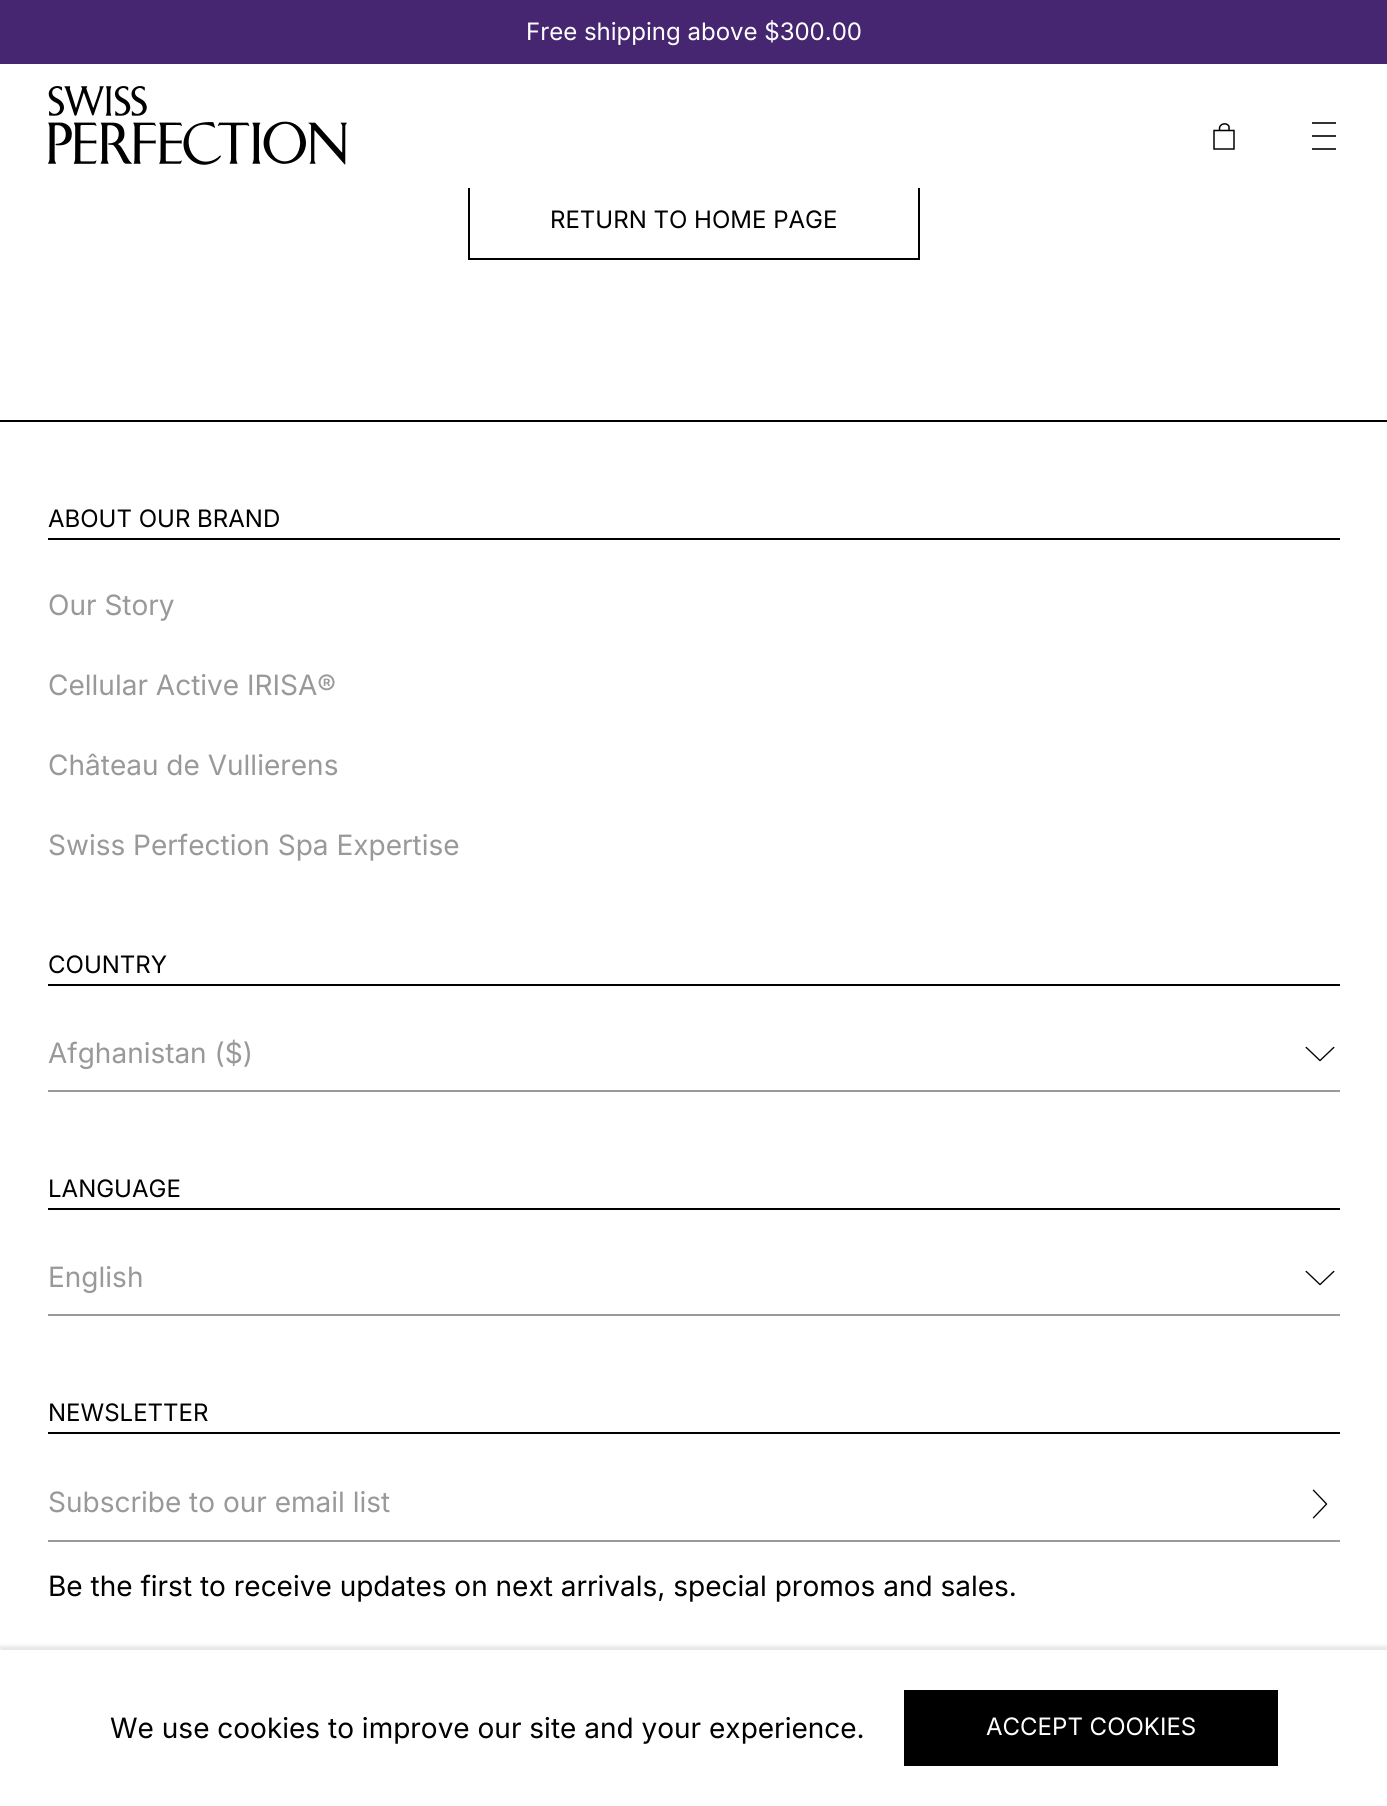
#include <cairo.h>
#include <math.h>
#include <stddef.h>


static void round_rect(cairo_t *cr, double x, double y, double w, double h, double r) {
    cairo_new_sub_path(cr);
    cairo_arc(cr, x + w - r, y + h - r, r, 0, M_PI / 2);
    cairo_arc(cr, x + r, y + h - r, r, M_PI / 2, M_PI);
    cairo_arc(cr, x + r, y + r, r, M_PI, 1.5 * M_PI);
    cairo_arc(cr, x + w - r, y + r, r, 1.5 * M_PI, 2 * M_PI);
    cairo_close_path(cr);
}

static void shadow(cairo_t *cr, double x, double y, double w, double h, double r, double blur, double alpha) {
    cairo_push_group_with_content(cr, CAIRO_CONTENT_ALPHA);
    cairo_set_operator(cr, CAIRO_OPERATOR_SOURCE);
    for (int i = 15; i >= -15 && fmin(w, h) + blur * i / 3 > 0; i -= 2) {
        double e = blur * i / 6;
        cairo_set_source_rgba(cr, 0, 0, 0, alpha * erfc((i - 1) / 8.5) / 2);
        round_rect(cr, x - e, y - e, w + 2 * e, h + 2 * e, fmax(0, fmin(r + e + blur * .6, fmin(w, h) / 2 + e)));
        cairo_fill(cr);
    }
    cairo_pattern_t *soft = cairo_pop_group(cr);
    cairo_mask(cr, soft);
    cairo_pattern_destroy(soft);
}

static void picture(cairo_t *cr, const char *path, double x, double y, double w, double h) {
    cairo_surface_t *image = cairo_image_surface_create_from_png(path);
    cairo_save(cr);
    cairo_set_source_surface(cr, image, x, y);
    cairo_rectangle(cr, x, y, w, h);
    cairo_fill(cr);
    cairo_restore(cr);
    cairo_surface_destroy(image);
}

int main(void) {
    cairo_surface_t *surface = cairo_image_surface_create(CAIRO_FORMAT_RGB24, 1387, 1806);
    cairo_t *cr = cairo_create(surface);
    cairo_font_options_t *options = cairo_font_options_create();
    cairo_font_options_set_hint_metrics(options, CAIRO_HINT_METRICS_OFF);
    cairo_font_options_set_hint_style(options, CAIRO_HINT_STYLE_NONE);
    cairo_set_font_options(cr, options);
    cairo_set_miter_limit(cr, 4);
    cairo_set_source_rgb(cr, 1, 1, 1);
    cairo_paint(cr);
    cairo_rectangle(cr, 469, 183, 450, 76);
    cairo_set_source_rgb(cr, 0, 0, 0);
    cairo_stroke(cr);
    cairo_set_source_rgb(cr, 1, 1, 1);
    cairo_rectangle(cr, 468, 182, 452, 6);
    cairo_fill(cr);
    cairo_set_source_rgb(cr, 0.275, 0.149, 0.443);
    cairo_rectangle(cr, 0, 0, 1387, 64);
    cairo_fill(cr);
    cairo_select_font_face(cr, "Inter", CAIRO_FONT_SLANT_NORMAL, CAIRO_FONT_WEIGHT_NORMAL);
    cairo_set_font_size(cr, 24);
    cairo_set_source_rgb(cr, 1, 1, 1);
    cairo_move_to(cr, 526, 40);
    cairo_show_text(cr, "Free shipping above $300.00");
    picture(cr, "img1.png", 48, 86, 299, 79);
    cairo_new_path(cr);
    cairo_move_to(cr, 1219.5, 128.5);
    cairo_curve_to(cr, 1219.5, 123.5, 1227, 122, 1229, 126.5);
    cairo_line_to(cr, 1229, 130.5);
    cairo_move_to(cr, 1214, 130.5);
    cairo_line_to(cr, 1234, 130.5);
    cairo_line_to(cr, 1234, 149);
    cairo_line_to(cr, 1214, 149);
    cairo_close_path(cr);
    cairo_move_to(cr, 1219.5, 128.5);
    cairo_line_to(cr, 1219.5, 130.5);
    cairo_set_source_rgb(cr, 0, 0, 0);
    cairo_set_line_width(cr, 1.5);
    cairo_stroke(cr);
    cairo_new_path(cr);
    cairo_move_to(cr, 1312, 123);
    cairo_line_to(cr, 1336, 123);
    cairo_move_to(cr, 1312, 136);
    cairo_line_to(cr, 1336, 136);
    cairo_move_to(cr, 1312, 149);
    cairo_line_to(cr, 1336, 149);
    cairo_set_line_width(cr, 1.6);
    cairo_stroke(cr);
    cairo_move_to(cr, 550, 228);
    cairo_show_text(cr, "RETURN TO HOME PAGE");
    cairo_rectangle(cr, 0, 420, 1387, 2);
    cairo_fill(cr);
    cairo_rectangle(cr, 48, 538, 1292, 2);
    cairo_fill(cr);
    cairo_move_to(cr, 48, 527);
    cairo_show_text(cr, "ABOUT OUR BRAND");
    cairo_set_font_size(cr, 28);
    cairo_set_source_rgb(cr, 0.6, 0.6, 0.6);
    cairo_move_to(cr, 48, 615);
    cairo_show_text(cr, "Our Story");
    cairo_move_to(cr, 48, 695);
    cairo_show_text(cr, "Cellular Active IRISA®");
    cairo_move_to(cr, 48, 775);
    cairo_show_text(cr, "Château de Vullierens");
    cairo_move_to(cr, 48, 855);
    cairo_show_text(cr, "Swiss Perfection Spa Expertise");
    cairo_set_source_rgb(cr, 0, 0, 0);
    cairo_rectangle(cr, 48, 984, 1292, 2);
    cairo_fill(cr);
    cairo_set_font_size(cr, 24);
    cairo_move_to(cr, 48, 973);
    cairo_show_text(cr, "COUNTRY");
    cairo_set_source_rgb(cr, 0.6, 0.6, 0.6);
    cairo_rectangle(cr, 48, 1090, 1292, 2);
    cairo_fill(cr);
    cairo_set_font_size(cr, 28);
    cairo_move_to(cr, 48, 1063);
    cairo_show_text(cr, "Afghanistan ($)");
    picture(cr, "img2.png", 1305, 1046, 30, 16);
    cairo_set_source_rgb(cr, 0, 0, 0);
    cairo_rectangle(cr, 48, 1208, 1292, 2);
    cairo_fill(cr);
    cairo_set_font_size(cr, 24);
    cairo_move_to(cr, 48, 1197);
    cairo_show_text(cr, "LANGUAGE");
    cairo_set_source_rgb(cr, 0.6, 0.6, 0.6);
    cairo_rectangle(cr, 48, 1314, 1292, 2);
    cairo_fill(cr);
    cairo_set_font_size(cr, 28);
    cairo_move_to(cr, 48, 1287);
    cairo_show_text(cr, "English");
    picture(cr, "img2.png", 1305, 1270, 30, 16);
    cairo_set_source_rgb(cr, 0, 0, 0);
    cairo_rectangle(cr, 48, 1432, 1292, 2);
    cairo_fill(cr);
    cairo_set_font_size(cr, 24);
    cairo_move_to(cr, 48, 1421);
    cairo_show_text(cr, "NEWSLETTER");
    cairo_set_source_rgb(cr, 0.6, 0.6, 0.6);
    cairo_rectangle(cr, 48, 1540, 1292, 2);
    cairo_fill(cr);
    cairo_set_font_size(cr, 28);
    cairo_move_to(cr, 48, 1512);
    cairo_show_text(cr, "Subscribe to our email list");
    picture(cr, "img3.png", 1312, 1489, 16, 30);
    cairo_set_source_rgb(cr, 0, 0, 0);
    cairo_move_to(cr, 48, 1596);
    cairo_show_text(cr, "Be the first to receive updates on next arrivals, special promos and sales.");
    cairo_set_source_rgb(cr, 0, 0, 0);
    shadow(cr, 0, 1646, 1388, 156, 0, 2, 0.1);
    cairo_set_source_rgb(cr, 1, 1, 1);
    cairo_rectangle(cr, 0, 1650, 1387, 155);
    cairo_fill(cr);
    cairo_set_source_rgb(cr, 0, 0, 0);
    cairo_move_to(cr, 110, 1738);
    cairo_show_text(cr, "We use cookies to improve our site and your experience.");
    cairo_rectangle(cr, 904, 1690, 374, 76);
    cairo_fill(cr);
    cairo_set_font_size(cr, 24);
    cairo_set_source_rgb(cr, 1, 1, 1);
    cairo_move_to(cr, 986, 1735);
    cairo_show_text(cr, "ACCEPT COOKIES");
    cairo_surface_write_to_png(surface, "page.png");
    cairo_font_options_destroy(options);
    cairo_destroy(cr);
    cairo_surface_destroy(surface);
    return 0;
}
